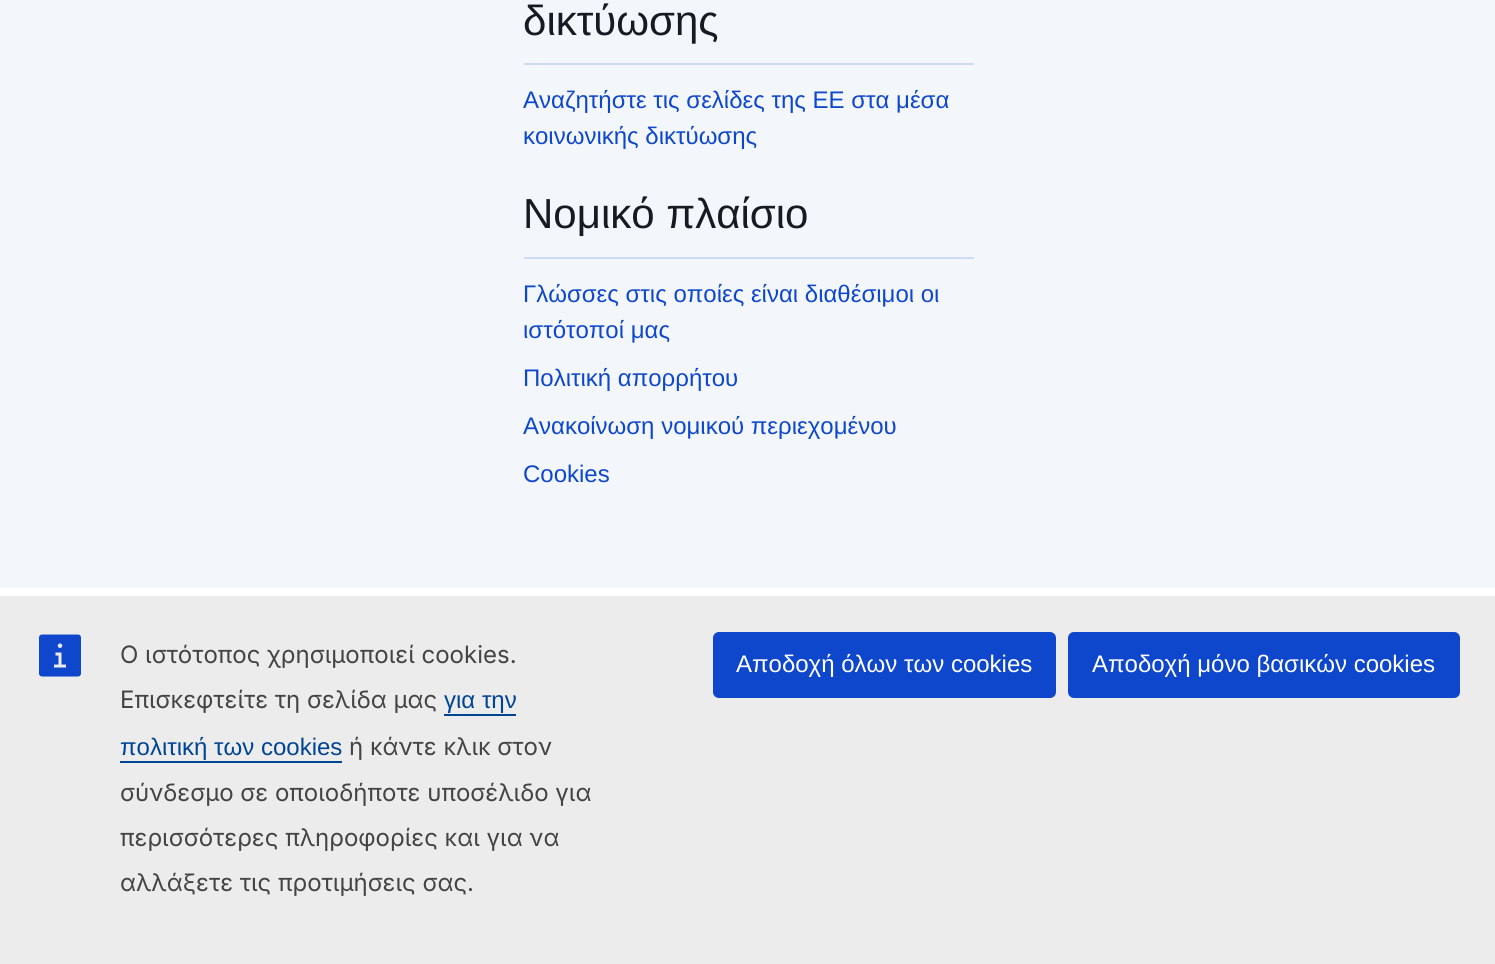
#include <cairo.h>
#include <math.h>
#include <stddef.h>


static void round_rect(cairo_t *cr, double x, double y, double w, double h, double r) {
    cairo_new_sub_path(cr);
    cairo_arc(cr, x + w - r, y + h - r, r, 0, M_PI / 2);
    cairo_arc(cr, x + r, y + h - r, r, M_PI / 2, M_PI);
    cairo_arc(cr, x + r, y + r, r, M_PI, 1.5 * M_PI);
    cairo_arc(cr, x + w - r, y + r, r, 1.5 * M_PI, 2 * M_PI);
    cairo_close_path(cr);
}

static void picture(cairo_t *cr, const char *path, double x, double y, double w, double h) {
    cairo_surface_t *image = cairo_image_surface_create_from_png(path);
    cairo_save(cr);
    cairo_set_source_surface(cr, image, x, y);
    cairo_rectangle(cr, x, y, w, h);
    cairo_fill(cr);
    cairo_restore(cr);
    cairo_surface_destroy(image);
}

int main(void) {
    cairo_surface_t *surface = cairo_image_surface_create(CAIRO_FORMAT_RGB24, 1495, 964);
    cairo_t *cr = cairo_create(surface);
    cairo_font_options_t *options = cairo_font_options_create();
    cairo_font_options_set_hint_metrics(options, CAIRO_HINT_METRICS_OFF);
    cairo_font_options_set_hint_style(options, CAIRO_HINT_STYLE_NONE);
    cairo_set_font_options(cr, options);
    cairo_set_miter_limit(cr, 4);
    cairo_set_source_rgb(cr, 1, 1, 1);
    cairo_paint(cr);
    cairo_set_source_rgb(cr, 0.953, 0.965, 0.988);
    cairo_rectangle(cr, 0, 0, 1495, 588);
    cairo_fill(cr);
    cairo_set_source_rgb(cr, 0.812, 0.855, 0.961);
    cairo_rectangle(cr, 524, 63, 450, 2);
    cairo_fill(cr);
    cairo_select_font_face(cr, "Liberation Sans", CAIRO_FONT_SLANT_NORMAL, CAIRO_FONT_WEIGHT_NORMAL);
    cairo_set_font_size(cr, 42);
    cairo_set_source_rgb(cr, 0.09, 0.102, 0.133);
    cairo_move_to(cr, 523, 35);
    cairo_show_text(cr, "δικτύωσης");
    cairo_set_font_size(cr, 24);
    cairo_set_source_rgb(cr, 0.055, 0.278, 0.796);
    cairo_move_to(cr, 523, 108);
    cairo_show_text(cr, "Αναζητήστε τις σελίδες της ΕΕ στα μέσα");
    cairo_move_to(cr, 523, 144);
    cairo_show_text(cr, "κοινωνικής δικτύωσης");
    cairo_set_source_rgb(cr, 0.812, 0.855, 0.961);
    cairo_rectangle(cr, 524, 257, 450, 2);
    cairo_fill(cr);
    cairo_set_font_size(cr, 42);
    cairo_set_source_rgb(cr, 0.09, 0.102, 0.133);
    cairo_move_to(cr, 523, 228);
    cairo_show_text(cr, "Νομικό πλαίσιο");
    cairo_set_font_size(cr, 24);
    cairo_set_source_rgb(cr, 0.055, 0.278, 0.796);
    cairo_move_to(cr, 523, 302);
    cairo_show_text(cr, "Γλώσσες στις οποίες είναι διαθέσιμοι οι");
    cairo_move_to(cr, 523, 338);
    cairo_show_text(cr, "ιστότοποί μας");
    cairo_move_to(cr, 523, 386);
    cairo_show_text(cr, "Πολιτική απορρήτου");
    cairo_move_to(cr, 523, 434);
    cairo_show_text(cr, "Ανακοίνωση νομικού περιεχομένου");
    cairo_move_to(cr, 523, 482);
    cairo_show_text(cr, "Cookies");
    cairo_set_source_rgb(cr, 0.922, 0.922, 0.922);
    cairo_rectangle(cr, 0, 596, 1495, 368);
    cairo_fill(cr);
    picture(cr, "img1.png", 39, 634, 42, 43);
    cairo_select_font_face(cr, "Inter", CAIRO_FONT_SLANT_NORMAL, CAIRO_FONT_WEIGHT_NORMAL);
    cairo_set_source_rgb(cr, 0.267, 0.267, 0.267);
    cairo_move_to(cr, 120, 663);
    cairo_show_text(cr, "Ο ιστότοπος χρησιμοποιεί cookies.");
    cairo_move_to(cr, 120, 708);
    cairo_show_text(cr, "Επισκεφτείτε τη σελίδα μας");
    cairo_select_font_face(cr, "Liberation Sans", CAIRO_FONT_SLANT_NORMAL, CAIRO_FONT_WEIGHT_NORMAL);
    cairo_set_source_rgb(cr, 0, 0.267, 0.58);
    cairo_move_to(cr, 444, 708);
    cairo_show_text(cr, "για την");
    cairo_rectangle(cr, 444, 714, 72, 2);
    cairo_fill(cr);
    cairo_move_to(cr, 120, 755);
    cairo_show_text(cr, "πολιτική των cookies");
    cairo_rectangle(cr, 120, 761, 222, 2);
    cairo_fill(cr);
    cairo_select_font_face(cr, "Inter", CAIRO_FONT_SLANT_NORMAL, CAIRO_FONT_WEIGHT_NORMAL);
    cairo_set_source_rgb(cr, 0.267, 0.267, 0.267);
    cairo_move_to(cr, 349, 755);
    cairo_show_text(cr, "ή κάντε κλικ στον");
    cairo_move_to(cr, 120, 801);
    cairo_show_text(cr, "σύνδεσμο σε οποιοδήποτε υποσέλιδο για");
    cairo_move_to(cr, 120, 846);
    cairo_show_text(cr, "περισσότερες πληροφορίες και για να");
    cairo_move_to(cr, 120, 891);
    cairo_show_text(cr, "αλλάξετε τις προτιμήσεις σας.");
    cairo_set_source_rgb(cr, 0.055, 0.278, 0.796);
    round_rect(cr, 713, 632, 343, 66, 6);
    cairo_fill(cr);
    cairo_select_font_face(cr, "Liberation Sans", CAIRO_FONT_SLANT_NORMAL, CAIRO_FONT_WEIGHT_NORMAL);
    cairo_set_source_rgb(cr, 1, 1, 1);
    cairo_move_to(cr, 736, 672);
    cairo_show_text(cr, "Αποδοχή όλων των cookies");
    cairo_set_source_rgb(cr, 0.055, 0.278, 0.796);
    round_rect(cr, 1068, 632, 392, 66, 6);
    cairo_fill(cr);
    cairo_set_source_rgb(cr, 1, 1, 1);
    cairo_move_to(cr, 1092, 672);
    cairo_show_text(cr, "Αποδοχή μόνο βασικών cookies");
    cairo_surface_write_to_png(surface, "page.png");
    cairo_font_options_destroy(options);
    cairo_destroy(cr);
    cairo_surface_destroy(surface);
    return 0;
}
